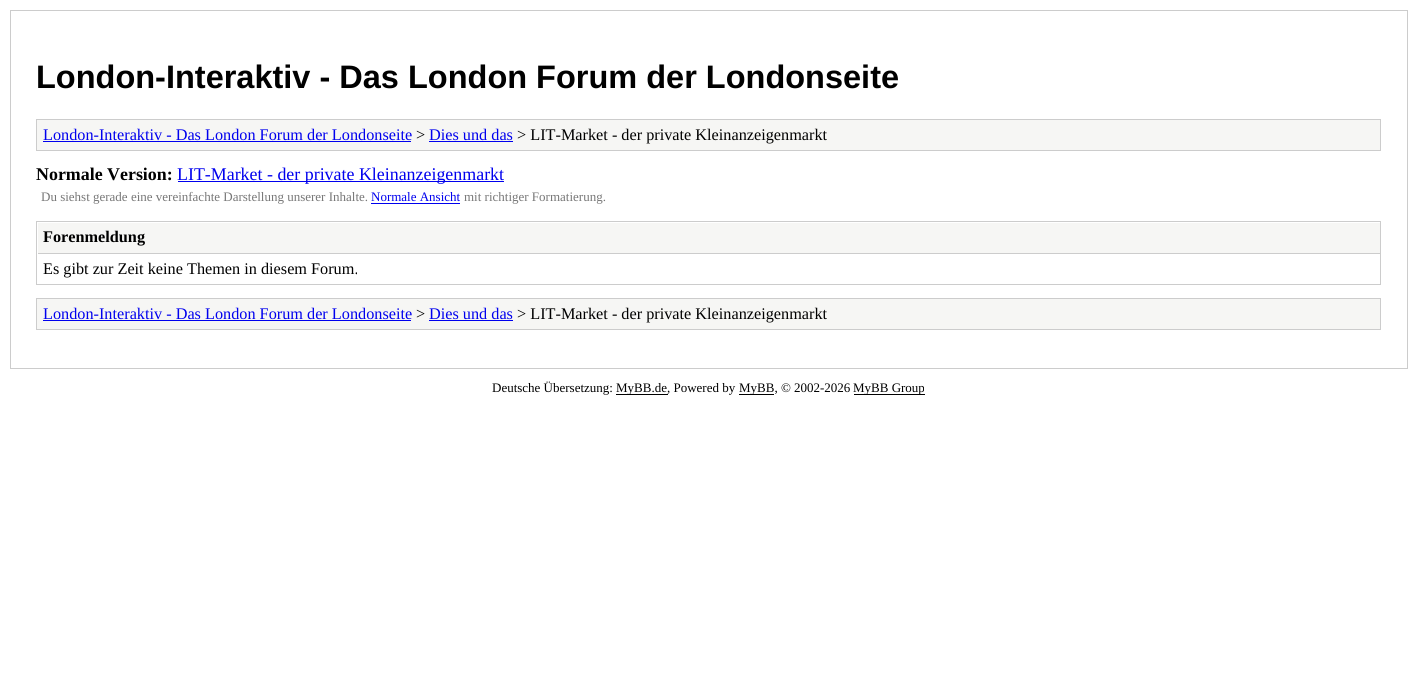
#include <cairo.h>
#include <math.h>
#include <stddef.h>


int main(void) {
    cairo_surface_t *surface = cairo_image_surface_create(CAIRO_FORMAT_RGB24, 1417, 685);
    cairo_t *cr = cairo_create(surface);
    cairo_font_options_t *options = cairo_font_options_create();
    cairo_font_options_set_hint_metrics(options, CAIRO_HINT_METRICS_OFF);
    cairo_font_options_set_hint_style(options, CAIRO_HINT_STYLE_NONE);
    cairo_set_font_options(cr, options);
    cairo_set_miter_limit(cr, 4);
    cairo_set_source_rgb(cr, 1, 1, 1);
    cairo_paint(cr);
    cairo_rectangle(cr, 10.5, 10.5, 1397, 358);
    cairo_set_source_rgb(cr, 0.8, 0.8, 0.8);
    cairo_set_line_width(cr, 1);
    cairo_stroke(cr);
    cairo_select_font_face(cr, "Liberation Sans", CAIRO_FONT_SLANT_NORMAL, CAIRO_FONT_WEIGHT_BOLD);
    cairo_set_font_size(cr, 32.5);
    cairo_set_source_rgb(cr, 0, 0, 0);
    cairo_move_to(cr, 36, 88);
    cairo_show_text(cr, "London-Interaktiv - Das London Forum der Londonseite");
    cairo_set_source_rgb(cr, 0.961, 0.961, 0.957);
    cairo_rectangle(cr, 36.5, 119.5, 1344, 31);
    cairo_fill_preserve(cr);
    cairo_set_source_rgb(cr, 0.8, 0.8, 0.8);
    cairo_stroke(cr);
    cairo_select_font_face(cr, "Liberation Serif", CAIRO_FONT_SLANT_NORMAL, CAIRO_FONT_WEIGHT_NORMAL);
    cairo_set_font_size(cr, 16.25);
    cairo_set_source_rgb(cr, 0, 0, 0.933);
    cairo_move_to(cr, 43, 140);
    cairo_show_text(cr, "London-Interaktiv - Das London Forum der Londonseite");
    cairo_rectangle(cr, 43, 141, 368, 1);
    cairo_fill(cr);
    cairo_set_source_rgb(cr, 0, 0, 0);
    cairo_move_to(cr, 416, 140);
    cairo_show_text(cr, ">");
    cairo_set_source_rgb(cr, 0, 0, 0.933);
    cairo_move_to(cr, 429, 140);
    cairo_show_text(cr, "Dies und das");
    cairo_rectangle(cr, 429, 141, 84, 1);
    cairo_fill(cr);
    cairo_set_source_rgb(cr, 0, 0, 0);
    cairo_move_to(cr, 517, 140);
    cairo_show_text(cr, "> LIT-Market - der private Kleinanzeigenmarkt");
    cairo_select_font_face(cr, "Liberation Serif", CAIRO_FONT_SLANT_NORMAL, CAIRO_FONT_WEIGHT_BOLD);
    cairo_set_font_size(cr, 17.9);
    cairo_move_to(cr, 36, 180);
    cairo_show_text(cr, "Normale Version:");
    cairo_set_source_rgb(cr, 0, 0, 0.933);
    cairo_rectangle(cr, 178, 181, 326, 1);
    cairo_fill(cr);
    cairo_select_font_face(cr, "Liberation Serif", CAIRO_FONT_SLANT_NORMAL, CAIRO_FONT_WEIGHT_NORMAL);
    cairo_move_to(cr, 177, 180);
    cairo_show_text(cr, "LIT-Market - der private Kleinanzeigenmarkt");
    cairo_set_font_size(cr, 13);
    cairo_set_source_rgb(cr, 0.467, 0.467, 0.467);
    cairo_move_to(cr, 41, 201);
    cairo_show_text(cr, "Du siehst gerade eine vereinfachte Darstellung unserer Inhalte.");
    cairo_set_source_rgb(cr, 0, 0, 0.933);
    cairo_move_to(cr, 371, 201);
    cairo_show_text(cr, "Normale Ansicht");
    cairo_rectangle(cr, 371, 203, 89, 1);
    cairo_fill(cr);
    cairo_set_source_rgb(cr, 0.467, 0.467, 0.467);
    cairo_move_to(cr, 464, 201);
    cairo_show_text(cr, "mit richtiger Formatierung.");
    cairo_rectangle(cr, 36.5, 221.5, 1344, 63);
    cairo_set_source_rgb(cr, 0.8, 0.8, 0.8);
    cairo_stroke(cr);
    cairo_set_source_rgb(cr, 0.961, 0.961, 0.957);
    cairo_rectangle(cr, 38, 223, 1342, 30);
    cairo_fill(cr);
    cairo_set_source_rgb(cr, 0.8, 0.8, 0.8);
    cairo_rectangle(cr, 38, 253, 1342, 1);
    cairo_fill(cr);
    cairo_select_font_face(cr, "Liberation Serif", CAIRO_FONT_SLANT_NORMAL, CAIRO_FONT_WEIGHT_BOLD);
    cairo_set_font_size(cr, 16.25);
    cairo_set_source_rgb(cr, 0, 0, 0);
    cairo_move_to(cr, 43, 242);
    cairo_show_text(cr, "Forenmeldung");
    cairo_select_font_face(cr, "Liberation Serif", CAIRO_FONT_SLANT_NORMAL, CAIRO_FONT_WEIGHT_NORMAL);
    cairo_move_to(cr, 43, 274);
    cairo_show_text(cr, "Es gibt zur Zeit keine Themen in diesem Forum.");
    cairo_set_source_rgb(cr, 0.961, 0.961, 0.957);
    cairo_rectangle(cr, 36.5, 298.5, 1344, 31);
    cairo_fill_preserve(cr);
    cairo_set_source_rgb(cr, 0.8, 0.8, 0.8);
    cairo_stroke(cr);
    cairo_set_source_rgb(cr, 0, 0, 0.933);
    cairo_move_to(cr, 43, 319);
    cairo_show_text(cr, "London-Interaktiv - Das London Forum der Londonseite");
    cairo_rectangle(cr, 43, 320, 368, 1);
    cairo_fill(cr);
    cairo_set_source_rgb(cr, 0, 0, 0);
    cairo_move_to(cr, 416, 319);
    cairo_show_text(cr, ">");
    cairo_set_source_rgb(cr, 0, 0, 0.933);
    cairo_move_to(cr, 429, 319);
    cairo_show_text(cr, "Dies und das");
    cairo_rectangle(cr, 429, 320, 84, 1);
    cairo_fill(cr);
    cairo_set_source_rgb(cr, 0, 0, 0);
    cairo_move_to(cr, 517, 319);
    cairo_show_text(cr, "> LIT-Market - der private Kleinanzeigenmarkt");
    cairo_set_font_size(cr, 13);
    cairo_move_to(cr, 492, 392);
    cairo_show_text(cr, "Deutsche Übersetzung:");
    cairo_rectangle(cr, 616, 394, 52, 1);
    cairo_fill(cr);
    cairo_move_to(cr, 616, 392);
    cairo_show_text(cr, "MyBB.de, Powered by");
    cairo_rectangle(cr, 739, 394, 35, 1);
    cairo_fill(cr);
    cairo_move_to(cr, 739, 392);
    cairo_show_text(cr, "MyBB, © 2002-2026");
    cairo_rectangle(cr, 854, 394, 71, 1);
    cairo_fill(cr);
    cairo_move_to(cr, 853, 392);
    cairo_show_text(cr, "MyBB Group");
    cairo_surface_write_to_png(surface, "page.png");
    cairo_font_options_destroy(options);
    cairo_destroy(cr);
    cairo_surface_destroy(surface);
    return 0;
}
